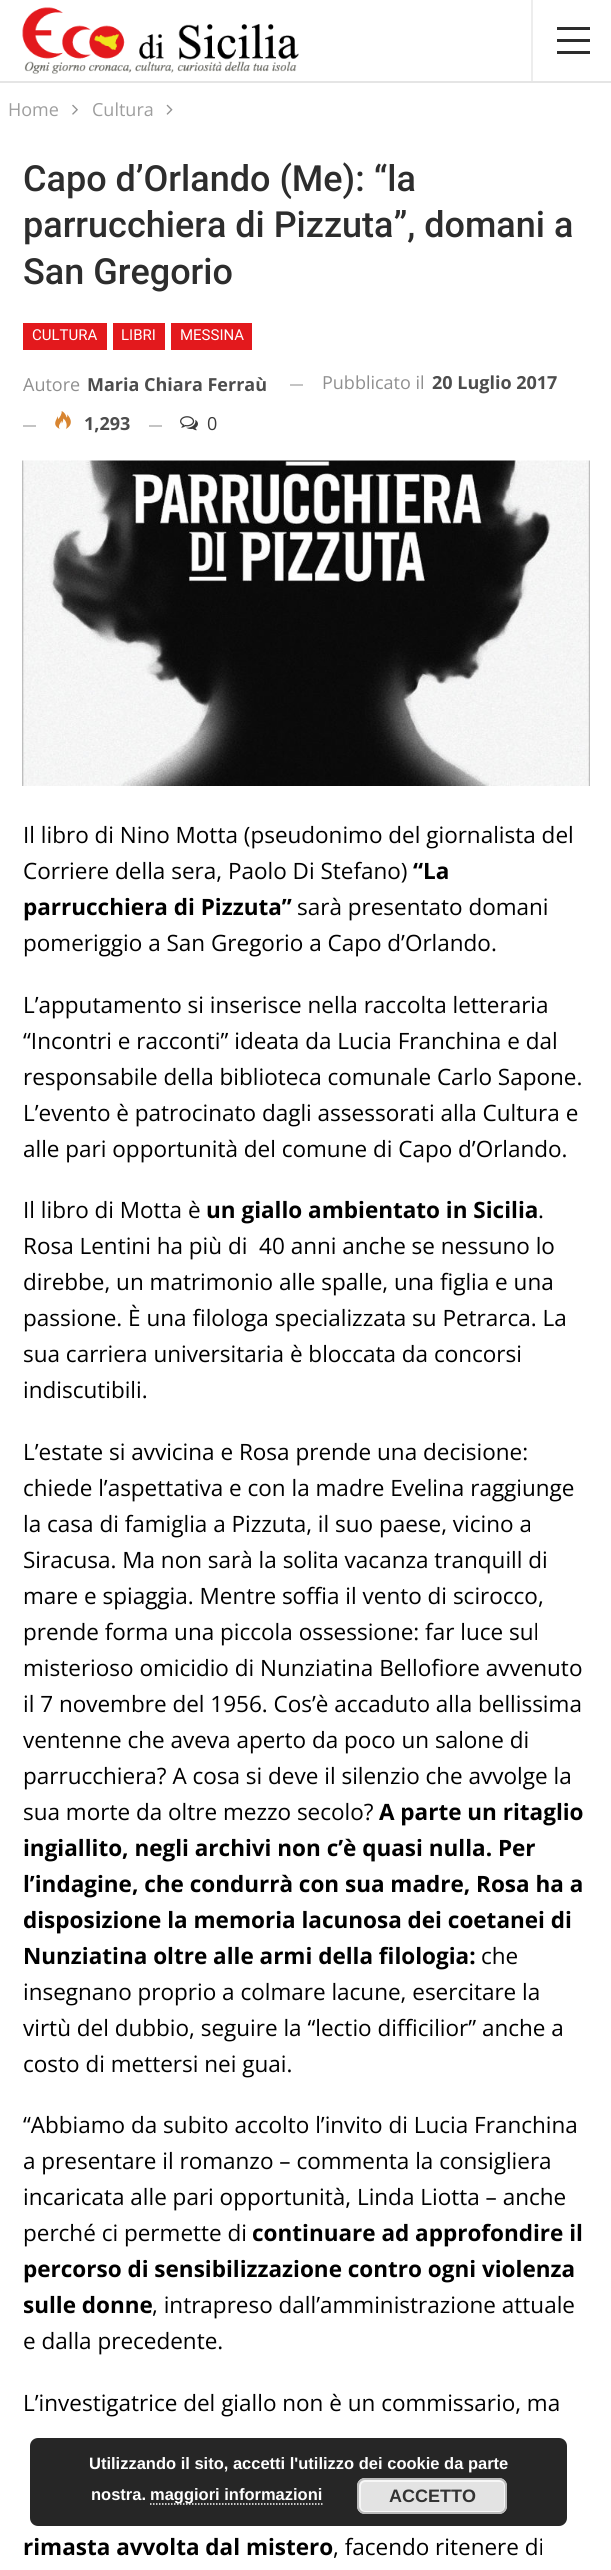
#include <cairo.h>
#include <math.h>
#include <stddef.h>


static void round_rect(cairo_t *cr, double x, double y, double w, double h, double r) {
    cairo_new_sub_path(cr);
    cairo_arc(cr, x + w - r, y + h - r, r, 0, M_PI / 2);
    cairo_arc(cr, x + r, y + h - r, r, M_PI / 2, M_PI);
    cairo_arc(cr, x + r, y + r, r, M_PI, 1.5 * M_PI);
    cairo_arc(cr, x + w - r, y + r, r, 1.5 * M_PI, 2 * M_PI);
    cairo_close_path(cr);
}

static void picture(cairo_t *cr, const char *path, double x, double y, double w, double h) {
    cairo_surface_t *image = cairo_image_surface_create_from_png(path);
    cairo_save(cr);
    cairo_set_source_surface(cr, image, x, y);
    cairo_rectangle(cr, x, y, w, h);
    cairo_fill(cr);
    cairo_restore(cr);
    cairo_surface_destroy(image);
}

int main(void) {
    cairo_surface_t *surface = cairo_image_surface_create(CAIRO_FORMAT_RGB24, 611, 2570);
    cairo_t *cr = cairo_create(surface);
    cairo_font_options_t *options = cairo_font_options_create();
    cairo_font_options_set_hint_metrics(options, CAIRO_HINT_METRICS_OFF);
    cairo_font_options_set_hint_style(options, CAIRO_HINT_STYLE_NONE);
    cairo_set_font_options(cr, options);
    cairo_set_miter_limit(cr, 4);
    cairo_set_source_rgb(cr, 1, 1, 1);
    cairo_paint(cr);
    cairo_set_source_rgb(cr, 0.898, 0.898, 0.898);
    cairo_rectangle(cr, 0, 81, 611, 2);
    cairo_fill(cr);
    picture(cr, "img1.png", 22, 7, 277, 67);
    cairo_set_source_rgb(cr, 0.929, 0.929, 0.929);
    cairo_rectangle(cr, 531, 0, 2, 81);
    cairo_fill(cr);
    cairo_set_source_rgb(cr, 0.173, 0.173, 0.173);
    cairo_rectangle(cr, 557, 39, 33, 3);
    cairo_fill(cr);
    cairo_rectangle(cr, 557, 27, 33, 3);
    cairo_fill(cr);
    cairo_rectangle(cr, 557, 51, 33, 3);
    cairo_fill(cr);
    cairo_select_font_face(cr, "Open Sans", CAIRO_FONT_SLANT_NORMAL, CAIRO_FONT_WEIGHT_NORMAL);
    cairo_set_font_size(cr, 18);
    cairo_set_source_rgb(cr, 0.62, 0.62, 0.62);
    cairo_move_to(cr, 8, 116);
    cairo_show_text(cr, "Home");
    picture(cr, "img2.png", 72, 104, 6, 11);
    cairo_move_to(cr, 92, 116);
    cairo_show_text(cr, "Cultura");
    picture(cr, "img3.png", 166, 104, 7, 11);
    cairo_select_font_face(cr, "Roboto Medium", CAIRO_FONT_SLANT_NORMAL, CAIRO_FONT_WEIGHT_NORMAL);
    cairo_set_font_size(cr, 36);
    cairo_set_source_rgb(cr, 0.176, 0.176, 0.176);
    cairo_move_to(cr, 23, 191);
    cairo_show_text(cr, "Capo d’Orlando (Me): “la");
    cairo_move_to(cr, 23, 237);
    cairo_show_text(cr, "parrucchiera di Pizzuta”, domani a");
    cairo_move_to(cr, 23, 284);
    cairo_show_text(cr, "San Gregorio");
    cairo_set_source_rgb(cr, 0.89, 0.098, 0.114);
    cairo_rectangle(cr, 23, 323, 84, 27);
    cairo_fill(cr);
    cairo_select_font_face(cr, "Roboto", CAIRO_FONT_SLANT_NORMAL, CAIRO_FONT_WEIGHT_NORMAL);
    cairo_set_font_size(cr, 15);
    cairo_set_source_rgb(cr, 1, 1, 1);
    cairo_move_to(cr, 32, 340);
    cairo_show_text(cr, "CULTURA");
    cairo_set_source_rgb(cr, 0.89, 0.098, 0.114);
    cairo_rectangle(cr, 113, 323, 52, 27);
    cairo_fill(cr);
    cairo_set_source_rgb(cr, 1, 1, 1);
    cairo_move_to(cr, 121, 340);
    cairo_show_text(cr, "LIBRI");
    cairo_set_source_rgb(cr, 0.89, 0.098, 0.114);
    cairo_rectangle(cr, 171, 323, 81, 27);
    cairo_fill(cr);
    cairo_set_source_rgb(cr, 1, 1, 1);
    cairo_move_to(cr, 180, 340);
    cairo_show_text(cr, "MESSINA");
    cairo_select_font_face(cr, "Open Sans", CAIRO_FONT_SLANT_NORMAL, CAIRO_FONT_WEIGHT_NORMAL);
    cairo_set_font_size(cr, 18);
    cairo_set_source_rgb(cr, 0.561, 0.561, 0.561);
    cairo_move_to(cr, 23, 391);
    cairo_show_text(cr, "Autore");
    cairo_select_font_face(cr, "Open Sans", CAIRO_FONT_SLANT_NORMAL, CAIRO_FONT_WEIGHT_BOLD);
    cairo_set_source_rgb(cr, 0.302, 0.302, 0.302);
    cairo_move_to(cr, 87, 391);
    cairo_show_text(cr, "Maria Chiara Ferraù");
    cairo_set_source_rgb(cr, 0.769, 0.769, 0.769);
    cairo_rectangle(cr, 290, 384, 13, 2);
    cairo_fill(cr);
    cairo_select_font_face(cr, "Open Sans", CAIRO_FONT_SLANT_NORMAL, CAIRO_FONT_WEIGHT_NORMAL);
    cairo_set_source_rgb(cr, 0.561, 0.561, 0.561);
    cairo_move_to(cr, 322, 389);
    cairo_show_text(cr, "Pubblicato il");
    cairo_select_font_face(cr, "Open Sans", CAIRO_FONT_SLANT_NORMAL, CAIRO_FONT_WEIGHT_BOLD);
    cairo_set_source_rgb(cr, 0.302, 0.302, 0.302);
    cairo_move_to(cr, 432, 389);
    cairo_show_text(cr, "20 Luglio 2017");
    cairo_set_source_rgb(cr, 0.769, 0.769, 0.769);
    cairo_rectangle(cr, 23, 425, 13, 2);
    cairo_fill(cr);
    picture(cr, "img4.png", 55, 411, 16, 18);
    cairo_set_source_rgb(cr, 0.302, 0.302, 0.302);
    cairo_move_to(cr, 84, 430);
    cairo_show_text(cr, "1,293");
    cairo_set_source_rgb(cr, 0.769, 0.769, 0.769);
    cairo_rectangle(cr, 149, 425, 13, 2);
    cairo_fill(cr);
    picture(cr, "img5.png", 180, 416, 18, 15);
    cairo_select_font_face(cr, "Open Sans", CAIRO_FONT_SLANT_NORMAL, CAIRO_FONT_WEIGHT_NORMAL);
    cairo_set_source_rgb(cr, 0.227, 0.227, 0.227);
    cairo_move_to(cr, 207, 430);
    cairo_show_text(cr, "0");
    picture(cr, "img6.png", 22, 460, 568, 326);
    cairo_set_font_size(cr, 22.5);
    cairo_set_source_rgb(cr, 0, 0, 0);
    cairo_move_to(cr, 23, 843);
    cairo_show_text(cr, "Il libro di Nino Motta (pseudonimo del giornalista del");
    cairo_move_to(cr, 23, 879);
    cairo_show_text(cr, "Corriere della sera, Paolo Di Stefano)");
    cairo_select_font_face(cr, "Open Sans", CAIRO_FONT_SLANT_NORMAL, CAIRO_FONT_WEIGHT_BOLD);
    cairo_move_to(cr, 413, 879);
    cairo_show_text(cr, "“La");
    cairo_move_to(cr, 23, 915);
    cairo_show_text(cr, "parrucchiera di Pizzuta”");
    cairo_select_font_face(cr, "Open Sans", CAIRO_FONT_SLANT_NORMAL, CAIRO_FONT_WEIGHT_NORMAL);
    cairo_move_to(cr, 297, 915);
    cairo_show_text(cr, "sarà presentato domani");
    cairo_move_to(cr, 23, 951);
    cairo_show_text(cr, "pomeriggio a San Gregorio a Capo d’Orlando.");
    cairo_move_to(cr, 23, 1013);
    cairo_show_text(cr, "L’apputamento si inserisce nella raccolta letteraria");
    cairo_move_to(cr, 23, 1049);
    cairo_show_text(cr, "“Incontri e racconti” ideata da Lucia Franchina e dal");
    cairo_move_to(cr, 23, 1085);
    cairo_show_text(cr, "responsabile della biblioteca comunale Carlo Sapone.");
    cairo_move_to(cr, 23, 1121);
    cairo_show_text(cr, "L’evento è patrocinato dagli assessorati alla Cultura e");
    cairo_move_to(cr, 23, 1157);
    cairo_show_text(cr, "alle pari opportunità del comune di Capo d’Orlando.");
    cairo_move_to(cr, 23, 1218);
    cairo_show_text(cr, "Il libro di Motta è");
    cairo_select_font_face(cr, "Open Sans", CAIRO_FONT_SLANT_NORMAL, CAIRO_FONT_WEIGHT_BOLD);
    cairo_move_to(cr, 206, 1218);
    cairo_show_text(cr, "un giallo ambientato in Sicilia");
    cairo_select_font_face(cr, "Open Sans", CAIRO_FONT_SLANT_NORMAL, CAIRO_FONT_WEIGHT_NORMAL);
    cairo_move_to(cr, 538, 1218);
    cairo_show_text(cr, ".");
    cairo_move_to(cr, 23, 1254);
    cairo_show_text(cr, "Rosa Lentini ha più di  40 anni anche se nessuno lo");
    cairo_move_to(cr, 23, 1290);
    cairo_show_text(cr, "direbbe, un matrimonio alle spalle, una figlia e una");
    cairo_move_to(cr, 23, 1326);
    cairo_show_text(cr, "passione. È una filologa specializzata su Petrarca. La");
    cairo_move_to(cr, 23, 1362);
    cairo_show_text(cr, "sua carriera universitaria è bloccata da concorsi");
    cairo_move_to(cr, 23, 1398);
    cairo_show_text(cr, "indiscutibili.");
    cairo_move_to(cr, 23, 1460);
    cairo_show_text(cr, "L’estate si avvicina e Rosa prende una decisione:");
    cairo_move_to(cr, 23, 1496);
    cairo_show_text(cr, "chiede l’aspettativa e con la madre Evelina raggiunge");
    cairo_move_to(cr, 23, 1532);
    cairo_show_text(cr, "la casa di famiglia a Pizzuta, il suo paese, vicino a");
    cairo_move_to(cr, 23, 1568);
    cairo_show_text(cr, "Siracusa. Ma non sarà la solita vacanza tranquill di");
    cairo_move_to(cr, 23, 1604);
    cairo_show_text(cr, "mare e spiaggia. Mentre soffia il vento di scirocco,");
    cairo_move_to(cr, 23, 1640);
    cairo_show_text(cr, "prende forma una piccola ossessione: far luce sul");
    cairo_move_to(cr, 23, 1676);
    cairo_show_text(cr, "misterioso omicidio di Nunziatina Bellofiore avvenuto");
    cairo_move_to(cr, 23, 1712);
    cairo_show_text(cr, "il 7 novembre del 1956. Cos’è accaduto alla bellissima");
    cairo_move_to(cr, 23, 1748);
    cairo_show_text(cr, "ventenne che aveva aperto da poco un salone di");
    cairo_move_to(cr, 23, 1784);
    cairo_show_text(cr, "parrucchiera? A cosa si deve il silenzio che avvolge la");
    cairo_move_to(cr, 23, 1820);
    cairo_show_text(cr, "sua morte da oltre mezzo secolo?");
    cairo_select_font_face(cr, "Open Sans", CAIRO_FONT_SLANT_NORMAL, CAIRO_FONT_WEIGHT_BOLD);
    cairo_move_to(cr, 379, 1820);
    cairo_show_text(cr, "A parte un ritaglio");
    cairo_move_to(cr, 23, 1856);
    cairo_show_text(cr, "ingiallito, negli archivi non c’è quasi nulla. Per");
    cairo_move_to(cr, 23, 1892);
    cairo_show_text(cr, "l’indagine, che condurrà con sua madre, Rosa ha a");
    cairo_move_to(cr, 23, 1928);
    cairo_show_text(cr, "disposizione la memoria lacunosa dei coetanei di");
    cairo_move_to(cr, 23, 1964);
    cairo_show_text(cr, "Nunziatina oltre alle armi della filologia:");
    cairo_select_font_face(cr, "Open Sans", CAIRO_FONT_SLANT_NORMAL, CAIRO_FONT_WEIGHT_NORMAL);
    cairo_move_to(cr, 481, 1964);
    cairo_show_text(cr, "che");
    cairo_move_to(cr, 23, 2000);
    cairo_show_text(cr, "insegnano proprio a colmare lacune, esercitare la");
    cairo_move_to(cr, 23, 2036);
    cairo_show_text(cr, "virtù del dubbio, seguire la “lectio difficilior” anche a");
    cairo_move_to(cr, 23, 2072);
    cairo_show_text(cr, "costo di mettersi nei guai.");
    cairo_move_to(cr, 23, 2133);
    cairo_show_text(cr, "“Abbiamo da subito accolto l’invito di Lucia Franchina");
    cairo_move_to(cr, 23, 2169);
    cairo_show_text(cr, "a presentare il romanzo – commenta la consigliera");
    cairo_move_to(cr, 23, 2205);
    cairo_show_text(cr, "incaricata alle pari opportunità, Linda Liotta – anche");
    cairo_move_to(cr, 23, 2241);
    cairo_show_text(cr, "perché ci permette di");
    cairo_select_font_face(cr, "Open Sans", CAIRO_FONT_SLANT_NORMAL, CAIRO_FONT_WEIGHT_BOLD);
    cairo_move_to(cr, 252, 2241);
    cairo_show_text(cr, "continuare ad approfondire il");
    cairo_move_to(cr, 23, 2277);
    cairo_show_text(cr, "percorso di sensibilizzazione contro ogni violenza");
    cairo_move_to(cr, 23, 2313);
    cairo_show_text(cr, "sulle donne");
    cairo_select_font_face(cr, "Open Sans", CAIRO_FONT_SLANT_NORMAL, CAIRO_FONT_WEIGHT_NORMAL);
    cairo_move_to(cr, 152, 2313);
    cairo_show_text(cr, ", intrapreso dall’amministrazione attuale");
    cairo_move_to(cr, 23, 2349);
    cairo_show_text(cr, "e dalla precedente.");
    cairo_move_to(cr, 23, 2411);
    cairo_show_text(cr, "L’investigatrice del giallo non è un commissario, ma");
    cairo_select_font_face(cr, "Open Sans", CAIRO_FONT_SLANT_NORMAL, CAIRO_FONT_WEIGHT_BOLD);
    cairo_move_to(cr, 23, 2555);
    cairo_show_text(cr, "rimasta avvolta dal mistero");
    cairo_select_font_face(cr, "Open Sans", CAIRO_FONT_SLANT_NORMAL, CAIRO_FONT_WEIGHT_NORMAL);
    cairo_move_to(cr, 333, 2555);
    cairo_show_text(cr, ", facendo ritenere di");
    cairo_set_source_rgba(cr, 0, 0, 0, 0.85);
    round_rect(cr, 30, 2438, 537, 88, 8);
    cairo_fill(cr);
    cairo_select_font_face(cr, "Liberation Sans", CAIRO_FONT_SLANT_NORMAL, CAIRO_FONT_WEIGHT_BOLD);
    cairo_set_font_size(cr, 16.5);
    cairo_set_source_rgb(cr, 1, 1, 1);
    cairo_move_to(cr, 89, 2469);
    cairo_show_text(cr, "Utilizzando il sito, accetti l'utilizzo dei cookie da parte");
    cairo_move_to(cr, 91, 2500);
    cairo_show_text(cr, "nostra.");
    cairo_new_path(cr);
    cairo_move_to(cr, 150, 2504);
    cairo_line_to(cr, 322.5, 2504);
    cairo_set_line_width(cr, 1.5);
    cairo_set_dash(cr, (double[]){1.5, 1.5}, 2, 0);
    cairo_stroke(cr);
    cairo_move_to(cr, 150, 2500);
    cairo_show_text(cr, "maggiori informazioni");
    cairo_set_source_rgb(cr, 0.89, 0.89, 0.89);
    round_rect(cr, 357, 2478, 150, 36, 8);
    cairo_fill(cr);
    round_rect(cr, 360, 2481, 145, 31, 5);
    cairo_set_source_rgb(cr, 0.965, 0.965, 0.965);
    cairo_set_line_width(cr, 2);
    cairo_set_dash(cr, NULL, 0, 0);
    cairo_stroke(cr);
    round_rect(cr, 358, 2479, 148, 34, 7);
    cairo_set_source_rgb(cr, 0.733, 0.733, 0.733);
    cairo_stroke(cr);
    cairo_set_font_size(cr, 18);
    cairo_set_source_rgb(cr, 0.2, 0.2, 0.2);
    cairo_move_to(cr, 389, 2502);
    cairo_show_text(cr, "ACCETTO");
    cairo_surface_write_to_png(surface, "page.png");
    cairo_font_options_destroy(options);
    cairo_destroy(cr);
    cairo_surface_destroy(surface);
    return 0;
}
